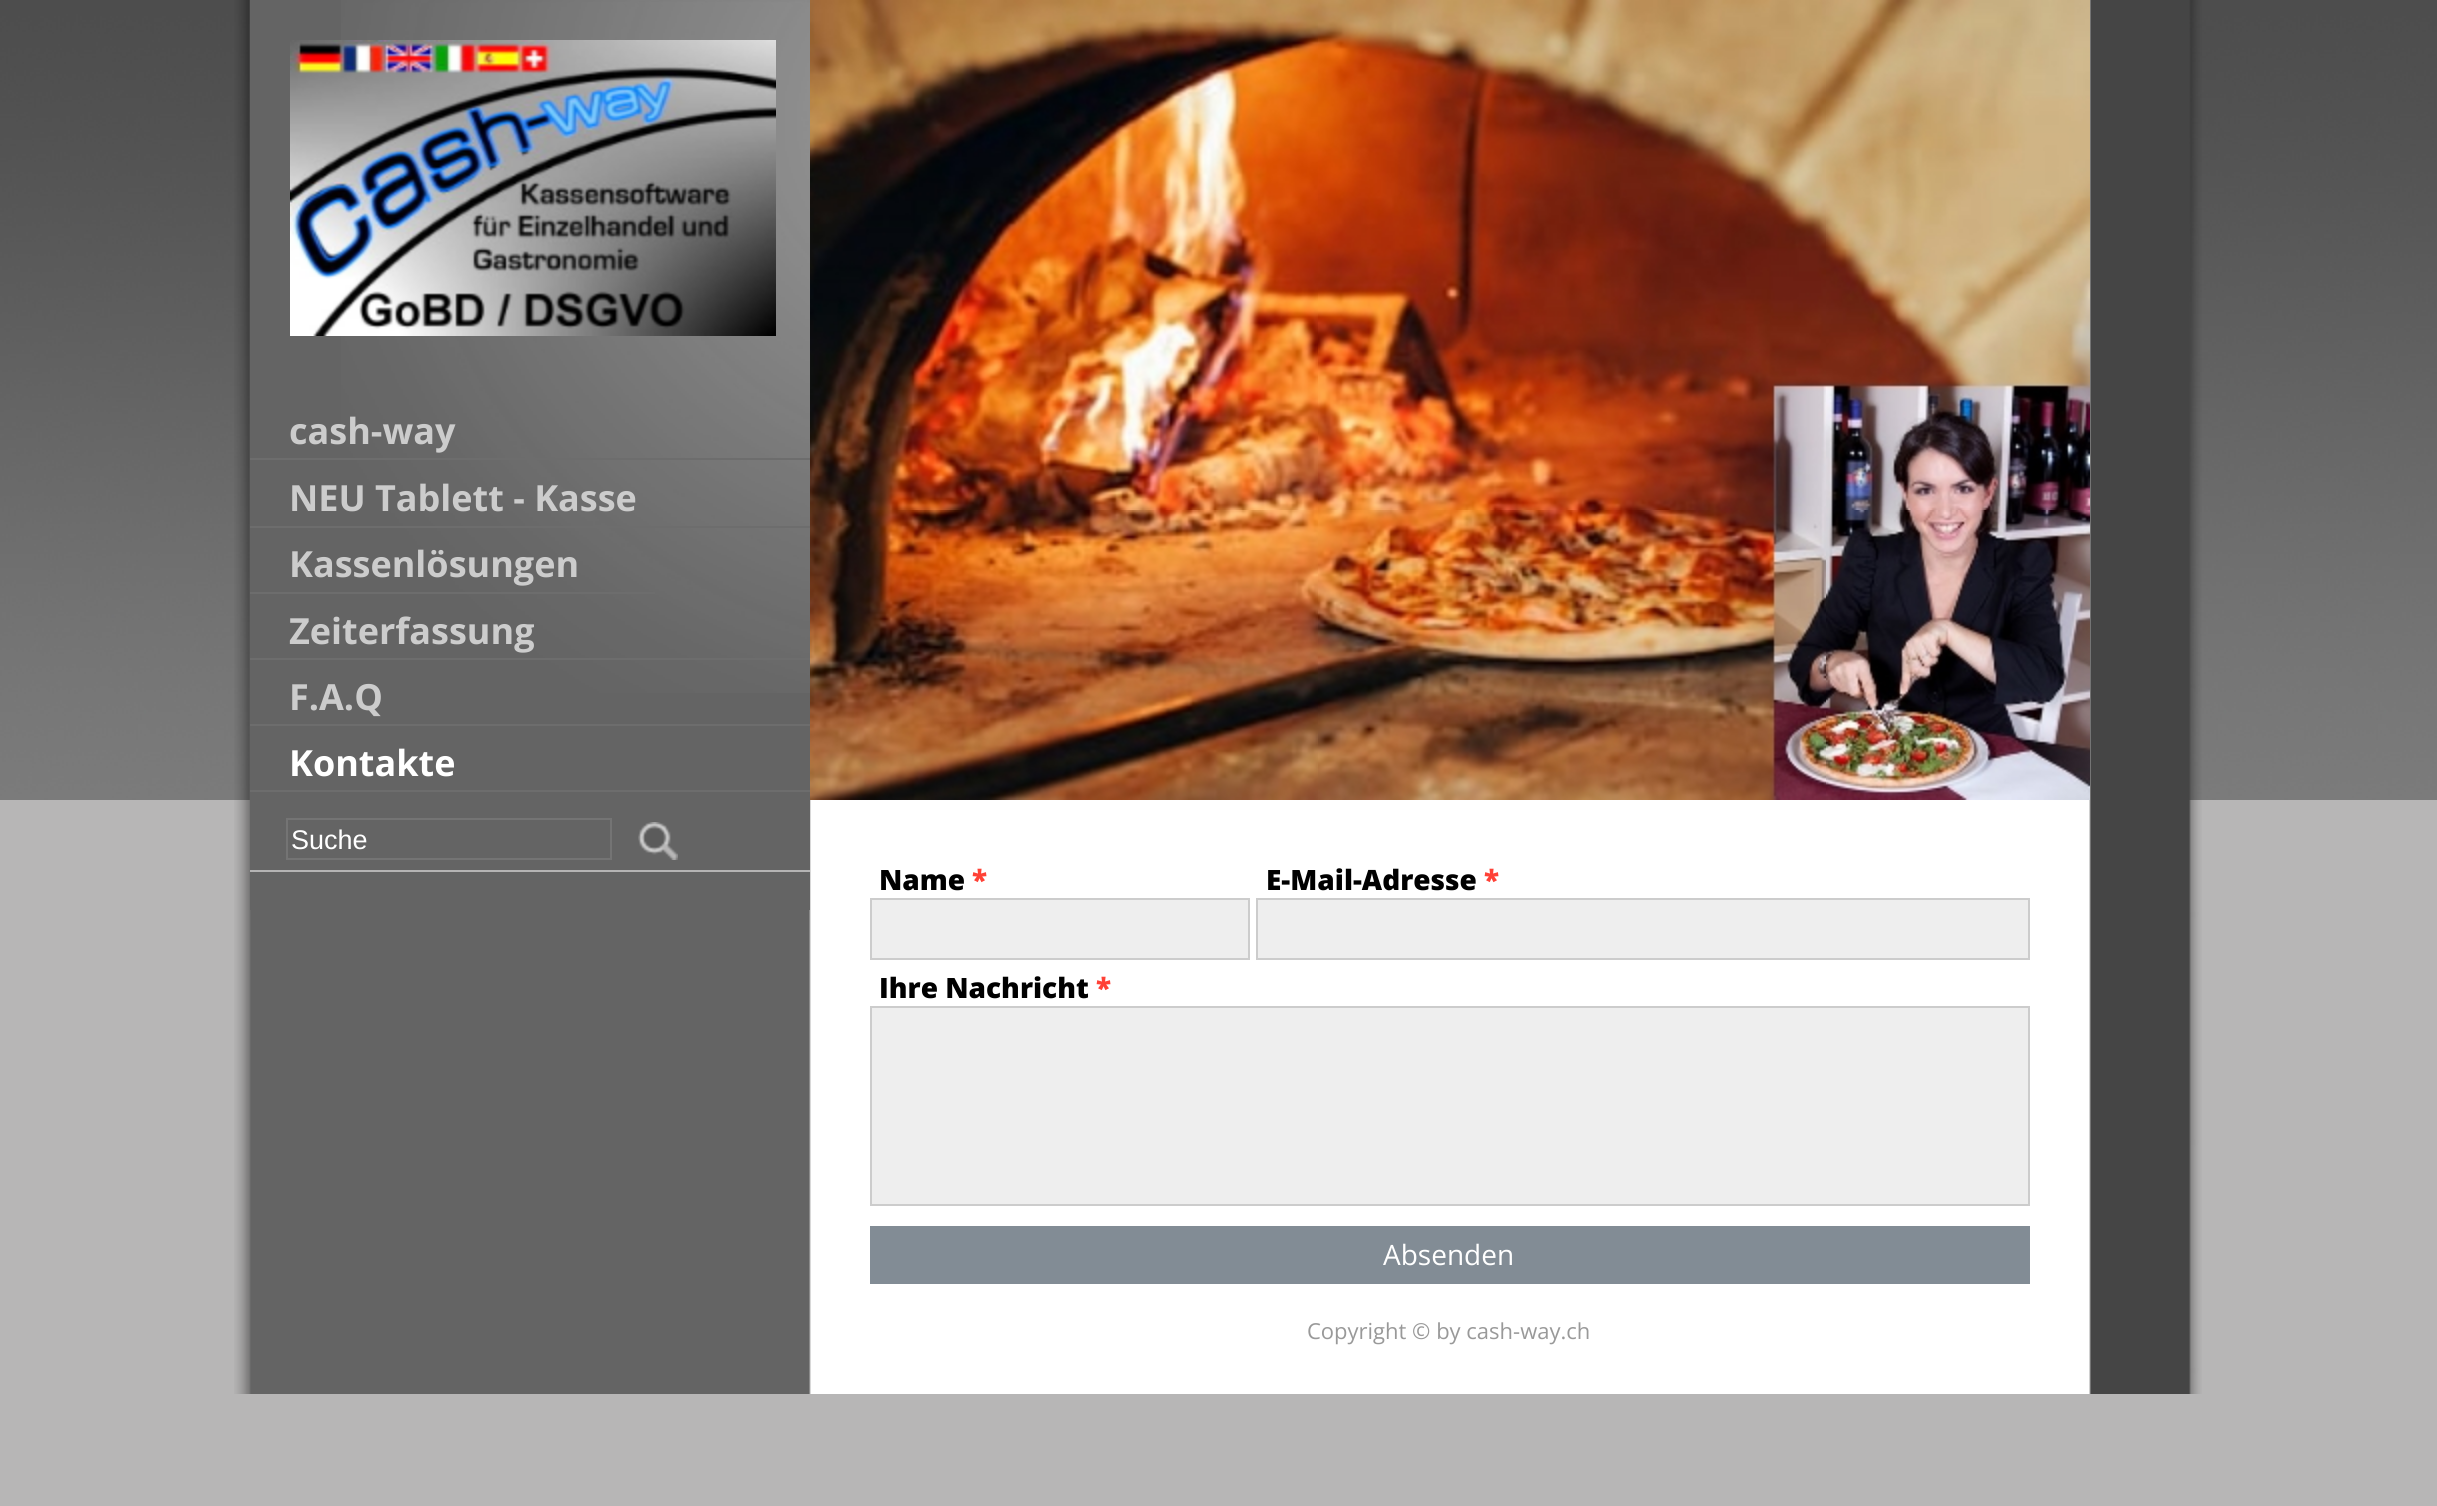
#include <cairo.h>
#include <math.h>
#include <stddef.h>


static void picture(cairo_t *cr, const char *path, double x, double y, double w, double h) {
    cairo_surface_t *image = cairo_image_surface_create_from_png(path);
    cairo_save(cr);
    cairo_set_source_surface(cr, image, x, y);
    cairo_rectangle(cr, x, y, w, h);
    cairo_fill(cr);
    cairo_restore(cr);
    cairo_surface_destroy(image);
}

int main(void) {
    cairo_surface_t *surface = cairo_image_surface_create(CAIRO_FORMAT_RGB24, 2437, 1506);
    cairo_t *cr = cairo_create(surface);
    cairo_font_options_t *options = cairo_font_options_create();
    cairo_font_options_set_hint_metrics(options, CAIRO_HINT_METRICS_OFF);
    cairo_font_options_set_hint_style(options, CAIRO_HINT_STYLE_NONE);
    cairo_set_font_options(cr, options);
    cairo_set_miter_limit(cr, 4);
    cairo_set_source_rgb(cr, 0.718, 0.714, 0.714);
    cairo_paint(cr);
    picture(cr, "img1.png", 0, 0, 2437, 800);
    picture(cr, "img2.png", 234, 0, 1968, 1394);
    cairo_set_source_rgb(cr, 0.392, 0.392, 0.392);
    cairo_rectangle(cr, 250, 0, 560, 910);
    cairo_fill(cr);
    picture(cr, "img3.png", 341, 0, 469, 693);
    picture(cr, "img4.png", 290, 40, 486, 296);
    cairo_set_source_rgb(cr, 0.427, 0.427, 0.427);
    cairo_rectangle(cr, 250, 458, 560, 2);
    cairo_fill(cr);
    cairo_select_font_face(cr, "Open Sans", CAIRO_FONT_SLANT_NORMAL, CAIRO_FONT_WEIGHT_BOLD);
    cairo_set_font_size(cr, 36);
    cairo_set_source_rgb(cr, 0.8, 0.8, 0.8);
    cairo_move_to(cr, 289, 444);
    cairo_show_text(cr, "cash-way");
    cairo_set_source_rgb(cr, 0.427, 0.427, 0.427);
    cairo_rectangle(cr, 250, 526, 560, 2);
    cairo_fill(cr);
    cairo_set_source_rgb(cr, 0.8, 0.8, 0.8);
    cairo_move_to(cr, 289, 511);
    cairo_show_text(cr, "NEU Tablett - Kasse");
    cairo_set_source_rgb(cr, 0.427, 0.427, 0.427);
    cairo_rectangle(cr, 250, 592, 405, 2);
    cairo_fill(cr);
    cairo_set_source_rgb(cr, 0.8, 0.8, 0.8);
    cairo_move_to(cr, 289, 577);
    cairo_show_text(cr, "Kassenlösungen");
    cairo_set_source_rgb(cr, 0.427, 0.427, 0.427);
    cairo_rectangle(cr, 250, 658, 560, 2);
    cairo_fill(cr);
    cairo_set_source_rgb(cr, 0.8, 0.8, 0.8);
    cairo_move_to(cr, 289, 644);
    cairo_show_text(cr, "Zeiterfassung");
    cairo_set_source_rgb(cr, 0.427, 0.427, 0.427);
    cairo_rectangle(cr, 250, 724, 560, 2);
    cairo_fill(cr);
    cairo_set_source_rgb(cr, 0.8, 0.8, 0.8);
    cairo_move_to(cr, 289, 710);
    cairo_show_text(cr, "F.A.Q");
    cairo_set_source_rgb(cr, 0.427, 0.427, 0.427);
    cairo_rectangle(cr, 250, 790, 560, 2);
    cairo_fill(cr);
    cairo_set_source_rgb(cr, 1, 1, 1);
    cairo_move_to(cr, 289, 776);
    cairo_show_text(cr, "Kontakte");
    cairo_set_source_rgb(cr, 0.71, 0.706, 0.706);
    cairo_rectangle(cr, 250, 870, 560, 2);
    cairo_fill(cr);
    cairo_rectangle(cr, 287, 819, 324, 40);
    cairo_set_source_rgb(cr, 0.455, 0.455, 0.455);
    cairo_stroke(cr);
    cairo_select_font_face(cr, "Liberation Sans", CAIRO_FONT_SLANT_NORMAL, CAIRO_FONT_WEIGHT_NORMAL);
    cairo_set_font_size(cr, 27);
    cairo_set_source_rgb(cr, 1, 1, 1);
    cairo_move_to(cr, 291, 849);
    cairo_show_text(cr, "Suche");
    picture(cr, "img5.png", 638, 822, 40, 38);
    picture(cr, "img6.png", 810, 0, 1280, 800);
    cairo_select_font_face(cr, "Open Sans ExtraBold", CAIRO_FONT_SLANT_NORMAL, CAIRO_FONT_WEIGHT_NORMAL);
    cairo_set_font_size(cr, 28);
    cairo_set_source_rgb(cr, 0, 0, 0);
    cairo_move_to(cr, 879, 890);
    cairo_show_text(cr, "Name");
    cairo_set_source_rgb(cr, 1, 0.255, 0.212);
    cairo_move_to(cr, 972, 890);
    cairo_show_text(cr, "*");
    cairo_set_source_rgb(cr, 0.933, 0.933, 0.933);
    cairo_rectangle(cr, 871, 899, 378, 60);
    cairo_fill_preserve(cr);
    cairo_set_source_rgb(cr, 0.8, 0.8, 0.8);
    cairo_stroke(cr);
    cairo_set_source_rgb(cr, 0, 0, 0);
    cairo_move_to(cr, 1266, 890);
    cairo_show_text(cr, "E-Mail-Adresse");
    cairo_set_source_rgb(cr, 1, 0.255, 0.212);
    cairo_move_to(cr, 1484, 890);
    cairo_show_text(cr, "*");
    cairo_set_source_rgb(cr, 0.933, 0.933, 0.933);
    cairo_rectangle(cr, 1257, 899, 772, 60);
    cairo_fill_preserve(cr);
    cairo_set_source_rgb(cr, 0.8, 0.8, 0.8);
    cairo_stroke(cr);
    cairo_set_source_rgb(cr, 0, 0, 0);
    cairo_move_to(cr, 879, 998);
    cairo_show_text(cr, "Ihre Nachricht");
    cairo_set_source_rgb(cr, 1, 0.255, 0.212);
    cairo_move_to(cr, 1096, 998);
    cairo_show_text(cr, "*");
    cairo_set_source_rgb(cr, 0.933, 0.933, 0.933);
    cairo_rectangle(cr, 871, 1007, 1158, 198);
    cairo_fill_preserve(cr);
    cairo_set_source_rgb(cr, 0.8, 0.8, 0.8);
    cairo_stroke(cr);
    cairo_set_source_rgb(cr, 0.51, 0.549, 0.584);
    cairo_rectangle(cr, 870, 1226, 1160, 58);
    cairo_fill(cr);
    cairo_select_font_face(cr, "Open Sans", CAIRO_FONT_SLANT_NORMAL, CAIRO_FONT_WEIGHT_NORMAL);
    cairo_set_source_rgb(cr, 1, 1, 1);
    cairo_move_to(cr, 1383, 1265);
    cairo_show_text(cr, "Absenden");
    cairo_set_font_size(cr, 22);
    cairo_set_source_rgb(cr, 0.6, 0.6, 0.6);
    cairo_move_to(cr, 1307, 1339);
    cairo_show_text(cr, "Copyright © by cash-way.ch");
    cairo_surface_write_to_png(surface, "page.png");
    cairo_font_options_destroy(options);
    cairo_destroy(cr);
    cairo_surface_destroy(surface);
    return 0;
}
